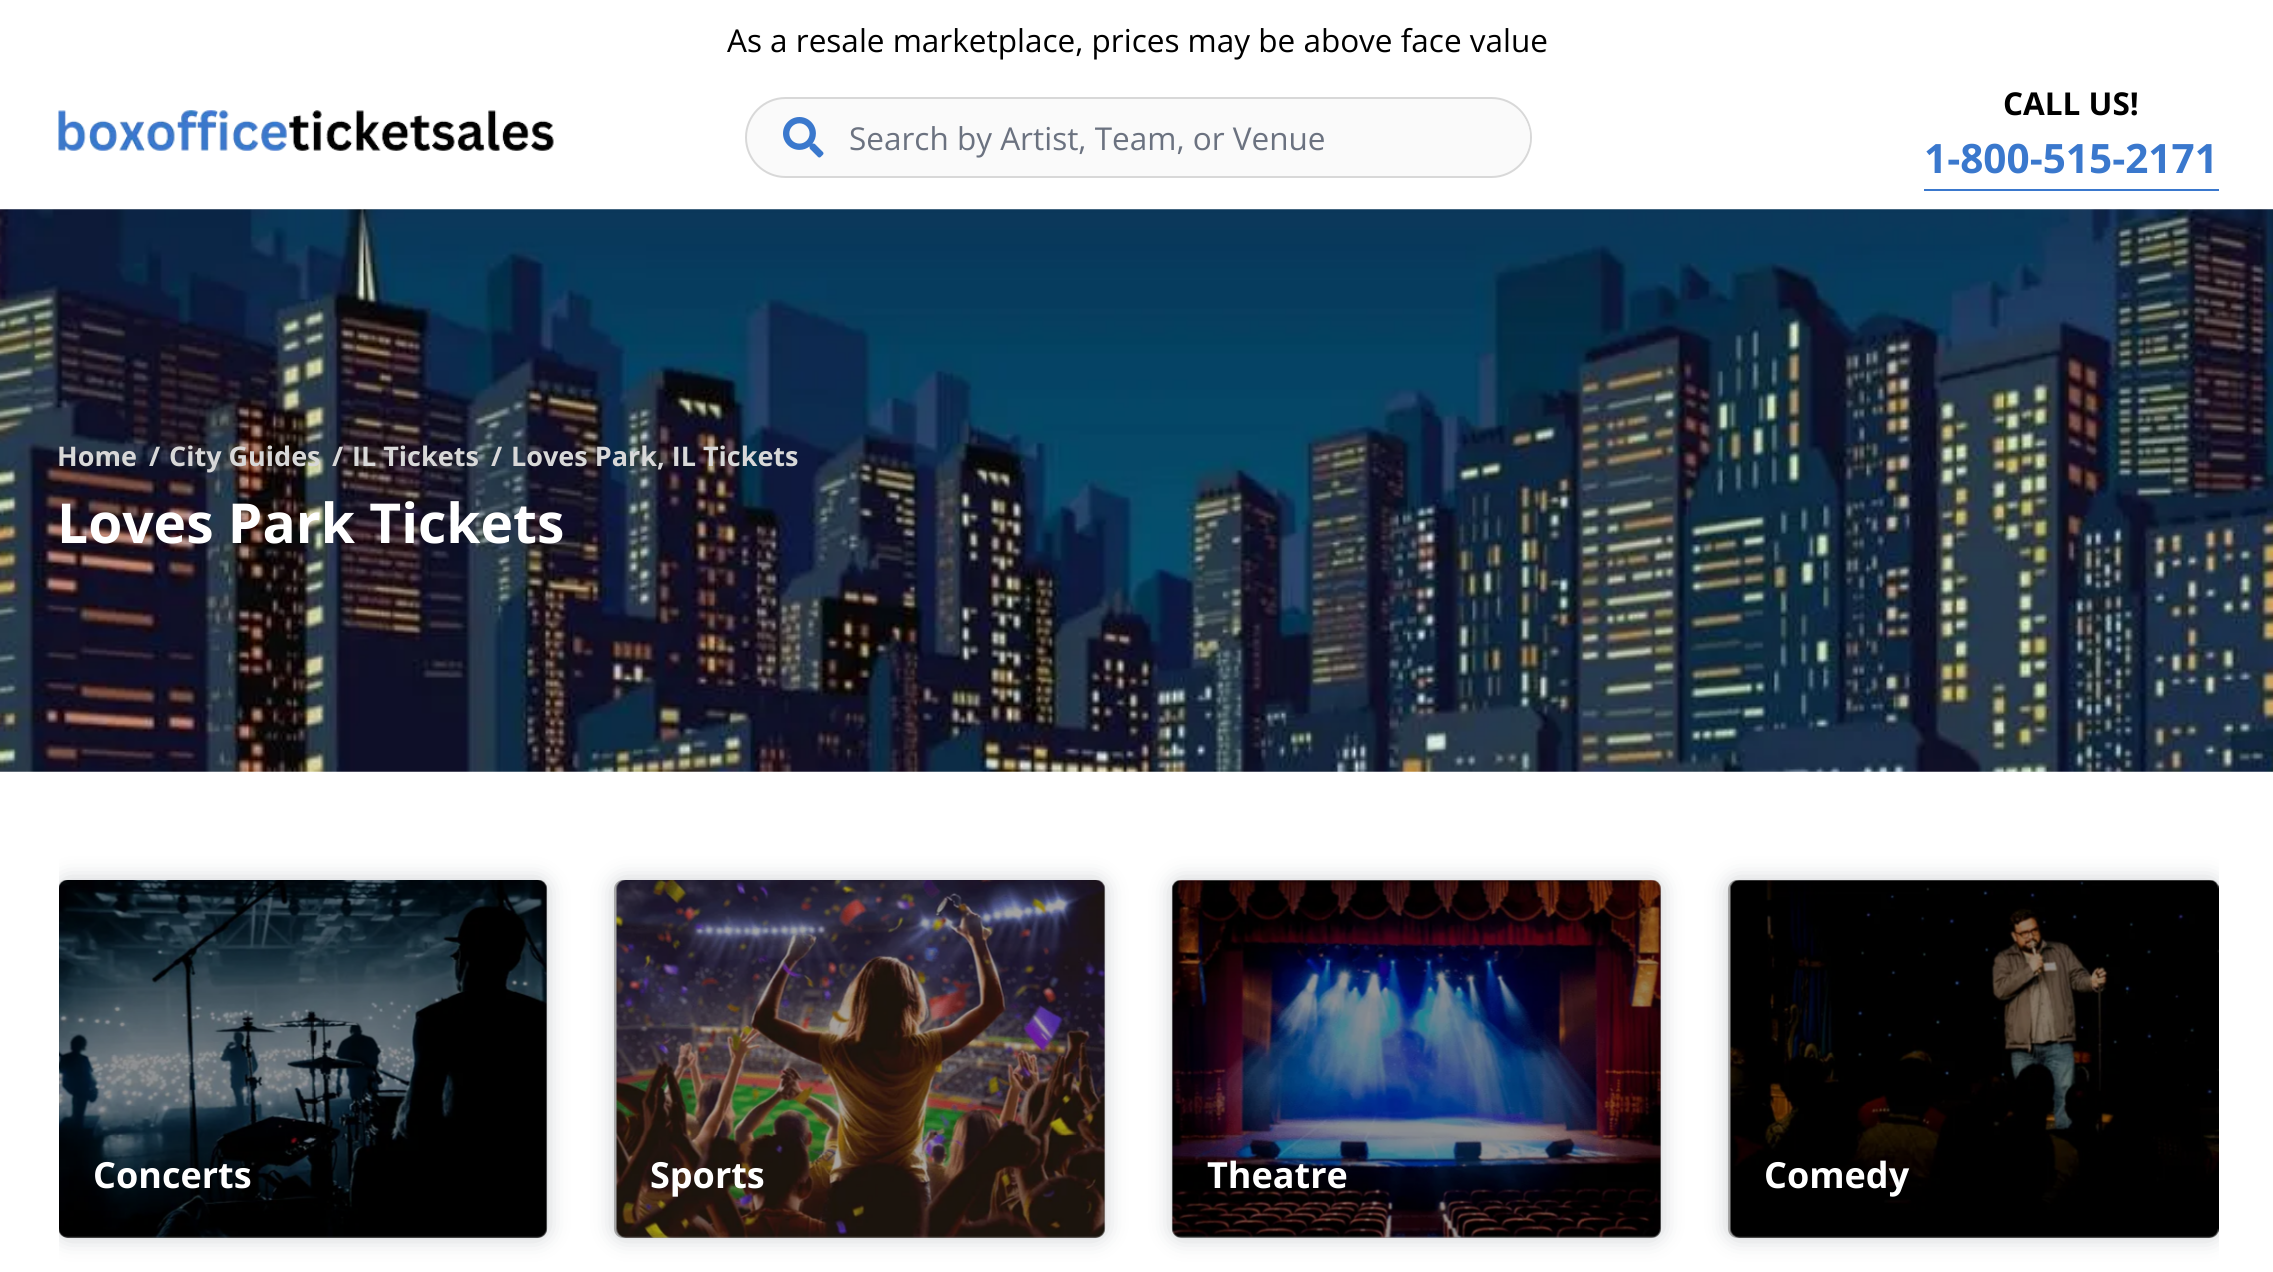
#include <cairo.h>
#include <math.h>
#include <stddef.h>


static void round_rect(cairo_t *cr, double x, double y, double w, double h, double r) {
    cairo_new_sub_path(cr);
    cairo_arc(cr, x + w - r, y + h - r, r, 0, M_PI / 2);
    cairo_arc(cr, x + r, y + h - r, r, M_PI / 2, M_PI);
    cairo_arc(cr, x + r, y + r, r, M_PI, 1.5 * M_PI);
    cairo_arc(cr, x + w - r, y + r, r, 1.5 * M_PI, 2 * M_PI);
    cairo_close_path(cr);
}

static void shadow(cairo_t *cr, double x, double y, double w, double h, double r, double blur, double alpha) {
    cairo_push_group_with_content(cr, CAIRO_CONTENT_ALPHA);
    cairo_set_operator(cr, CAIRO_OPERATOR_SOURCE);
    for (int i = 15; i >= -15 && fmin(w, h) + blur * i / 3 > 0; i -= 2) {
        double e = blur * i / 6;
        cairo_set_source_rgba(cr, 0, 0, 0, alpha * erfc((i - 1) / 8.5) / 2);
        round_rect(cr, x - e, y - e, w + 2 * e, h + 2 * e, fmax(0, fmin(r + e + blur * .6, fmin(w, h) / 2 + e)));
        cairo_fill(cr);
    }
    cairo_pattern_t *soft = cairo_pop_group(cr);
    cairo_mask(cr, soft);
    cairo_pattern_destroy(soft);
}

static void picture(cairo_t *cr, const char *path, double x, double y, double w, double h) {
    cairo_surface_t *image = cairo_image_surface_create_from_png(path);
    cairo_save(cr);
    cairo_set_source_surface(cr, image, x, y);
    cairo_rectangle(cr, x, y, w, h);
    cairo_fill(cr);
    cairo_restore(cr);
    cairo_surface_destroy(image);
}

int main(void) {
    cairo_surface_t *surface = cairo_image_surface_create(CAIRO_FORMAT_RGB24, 2273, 1272);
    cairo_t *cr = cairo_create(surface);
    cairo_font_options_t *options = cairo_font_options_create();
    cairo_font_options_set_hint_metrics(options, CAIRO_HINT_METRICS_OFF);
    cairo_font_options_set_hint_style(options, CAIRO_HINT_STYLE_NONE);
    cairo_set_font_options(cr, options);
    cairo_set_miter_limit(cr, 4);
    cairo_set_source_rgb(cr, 1, 1, 1);
    cairo_paint(cr);
    cairo_select_font_face(cr, "Open Sans", CAIRO_FONT_SLANT_NORMAL, CAIRO_FONT_WEIGHT_NORMAL);
    cairo_set_font_size(cr, 31.5);
    cairo_set_source_rgb(cr, 0, 0, 0);
    cairo_move_to(cr, 727, 52);
    cairo_show_text(cr, "As a resale marketplace, prices may be above face value");
    picture(cr, "img1.png", 58, 110, 496, 41);
    cairo_set_source_rgb(cr, 0.98, 0.98, 0.98);
    round_rect(cr, 746, 98, 785, 79, 39.5);
    cairo_fill_preserve(cr);
    cairo_set_source_rgb(cr, 0.847, 0.847, 0.847);
    cairo_stroke(cr);
    picture(cr, "img2.png", 783, 117, 41, 41);
    cairo_set_source_rgb(cr, 0.98, 0.98, 0.98);
    round_rect(cr, 824, 101, 706, 72, 36);
    cairo_fill(cr);
    cairo_set_source_rgb(cr, 0.42, 0.447, 0.502);
    cairo_move_to(cr, 849, 150);
    cairo_show_text(cr, "Search by Artist, Team, or Venue");
    cairo_select_font_face(cr, "Open Sans", CAIRO_FONT_SLANT_NORMAL, CAIRO_FONT_WEIGHT_BOLD);
    cairo_set_source_rgb(cr, 0, 0, 0);
    cairo_move_to(cr, 2003, 115);
    cairo_show_text(cr, "CALL US!");
    cairo_set_source_rgb(cr, 0.227, 0.471, 0.804);
    cairo_rectangle(cr, 1924, 189, 295, 2);
    cairo_fill(cr);
    cairo_set_font_size(cr, 40.5);
    cairo_move_to(cr, 1924, 173);
    cairo_show_text(cr, "1-800-515-2171");
    picture(cr, "img3.png", 0, 209, 2273, 563);
    cairo_set_font_size(cr, 27);
    cairo_set_source_rgb(cr, 0.847, 0.847, 0.847);
    cairo_move_to(cr, 57, 466);
    cairo_show_text(cr, "Home");
    cairo_move_to(cr, 149, 466);
    cairo_show_text(cr, "/");
    cairo_move_to(cr, 169, 466);
    cairo_show_text(cr, "City Guides");
    cairo_move_to(cr, 332, 466);
    cairo_show_text(cr, "/");
    cairo_move_to(cr, 352, 466);
    cairo_show_text(cr, "IL Tickets");
    cairo_move_to(cr, 491, 466);
    cairo_show_text(cr, "/");
    cairo_move_to(cr, 511, 466);
    cairo_show_text(cr, "Loves Park, IL Tickets");
    cairo_set_font_size(cr, 55.1);
    cairo_set_source_rgb(cr, 1, 1, 1);
    cairo_move_to(cr, 57, 543);
    cairo_show_text(cr, "Loves Park Tickets");
    cairo_save(cr);
    cairo_rectangle(cr, 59, 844, 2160, 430);
    cairo_clip(cr);
    cairo_set_source_rgb(cr, 0.427, 0.463, 0.494);
    shadow(cr, 59, 880, 488, 358, 9, 11, 0.35);
    cairo_restore(cr);
    picture(cr, "img4.png", 59, 880, 489, 358);
    cairo_set_source_rgba(cr, 0, 0, 0, 0.35);
    round_rect(cr, 59, 880, 488, 358, 9);
    cairo_fill(cr);
    cairo_set_font_size(cr, 36);
    cairo_set_source_rgb(cr, 1, 1, 1);
    cairo_move_to(cr, 93, 1188);
    cairo_show_text(cr, "Concerts");
    cairo_save(cr);
    cairo_set_fill_rule(cr, CAIRO_FILL_RULE_EVEN_ODD);
    cairo_new_path(cr);
    cairo_move_to(cr, 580, 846);
    cairo_line_to(cr, 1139, 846);
    cairo_line_to(cr, 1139, 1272);
    cairo_line_to(cr, 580, 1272);
    cairo_close_path(cr);
    cairo_move_to(cr, 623, 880);
    cairo_line_to(cr, 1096, 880);
    cairo_curve_to(cr, 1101, 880, 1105, 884, 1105, 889);
    cairo_line_to(cr, 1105, 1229);
    cairo_curve_to(cr, 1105, 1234, 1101, 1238, 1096, 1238);
    cairo_line_to(cr, 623, 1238);
    cairo_curve_to(cr, 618, 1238, 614, 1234, 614, 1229);
    cairo_line_to(cr, 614, 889);
    cairo_curve_to(cr, 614, 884, 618, 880, 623, 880);
    cairo_close_path(cr);
    cairo_clip(cr);
    cairo_set_source_rgb(cr, 0.427, 0.463, 0.494);
    shadow(cr, 614, 880, 491, 358, 9, 11, 0.35);
    cairo_restore(cr);
    picture(cr, "img5.png", 616, 880, 490, 358);
    cairo_set_source_rgba(cr, 0, 0, 0, 0.35);
    round_rect(cr, 614, 880, 491, 358, 9);
    cairo_fill(cr);
    cairo_set_source_rgb(cr, 1, 1, 1);
    cairo_move_to(cr, 650, 1188);
    cairo_show_text(cr, "Sports");
    cairo_set_source_rgb(cr, 0.427, 0.463, 0.494);
    shadow(cr, 1172, 880, 489, 358, 9, 11, 0.35);
    picture(cr, "img6.png", 1171, 880, 490, 358);
    cairo_set_source_rgba(cr, 0, 0, 0, 0.35);
    round_rect(cr, 1172, 880, 489, 358, 9);
    cairo_fill(cr);
    cairo_set_source_rgb(cr, 1, 1, 1);
    cairo_move_to(cr, 1207, 1188);
    cairo_show_text(cr, "Theatre");
    cairo_save(cr);
    cairo_rectangle(cr, 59, 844, 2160, 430);
    cairo_clip(cr);
    cairo_set_fill_rule(cr, CAIRO_FILL_RULE_EVEN_ODD);
    cairo_new_path(cr);
    cairo_move_to(cr, 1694, 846);
    cairo_line_to(cr, 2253, 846);
    cairo_line_to(cr, 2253, 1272);
    cairo_line_to(cr, 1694, 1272);
    cairo_close_path(cr);
    cairo_move_to(cr, 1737, 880);
    cairo_line_to(cr, 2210, 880);
    cairo_curve_to(cr, 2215, 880, 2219, 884, 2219, 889);
    cairo_line_to(cr, 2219, 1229);
    cairo_curve_to(cr, 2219, 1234, 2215, 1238, 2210, 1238);
    cairo_line_to(cr, 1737, 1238);
    cairo_curve_to(cr, 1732, 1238, 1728, 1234, 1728, 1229);
    cairo_line_to(cr, 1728, 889);
    cairo_curve_to(cr, 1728, 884, 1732, 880, 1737, 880);
    cairo_close_path(cr);
    cairo_clip(cr);
    cairo_set_source_rgb(cr, 0.427, 0.463, 0.494);
    shadow(cr, 1728, 880, 491, 358, 9, 11, 0.35);
    cairo_restore(cr);
    picture(cr, "img7.png", 1729, 880, 490, 358);
    cairo_set_source_rgba(cr, 0, 0, 0, 0.35);
    round_rect(cr, 1728, 880, 491, 358, 9);
    cairo_fill(cr);
    cairo_set_source_rgb(cr, 1, 1, 1);
    cairo_move_to(cr, 1764, 1188);
    cairo_show_text(cr, "Comedy");
    cairo_surface_write_to_png(surface, "page.png");
    cairo_font_options_destroy(options);
    cairo_destroy(cr);
    cairo_surface_destroy(surface);
    return 0;
}
